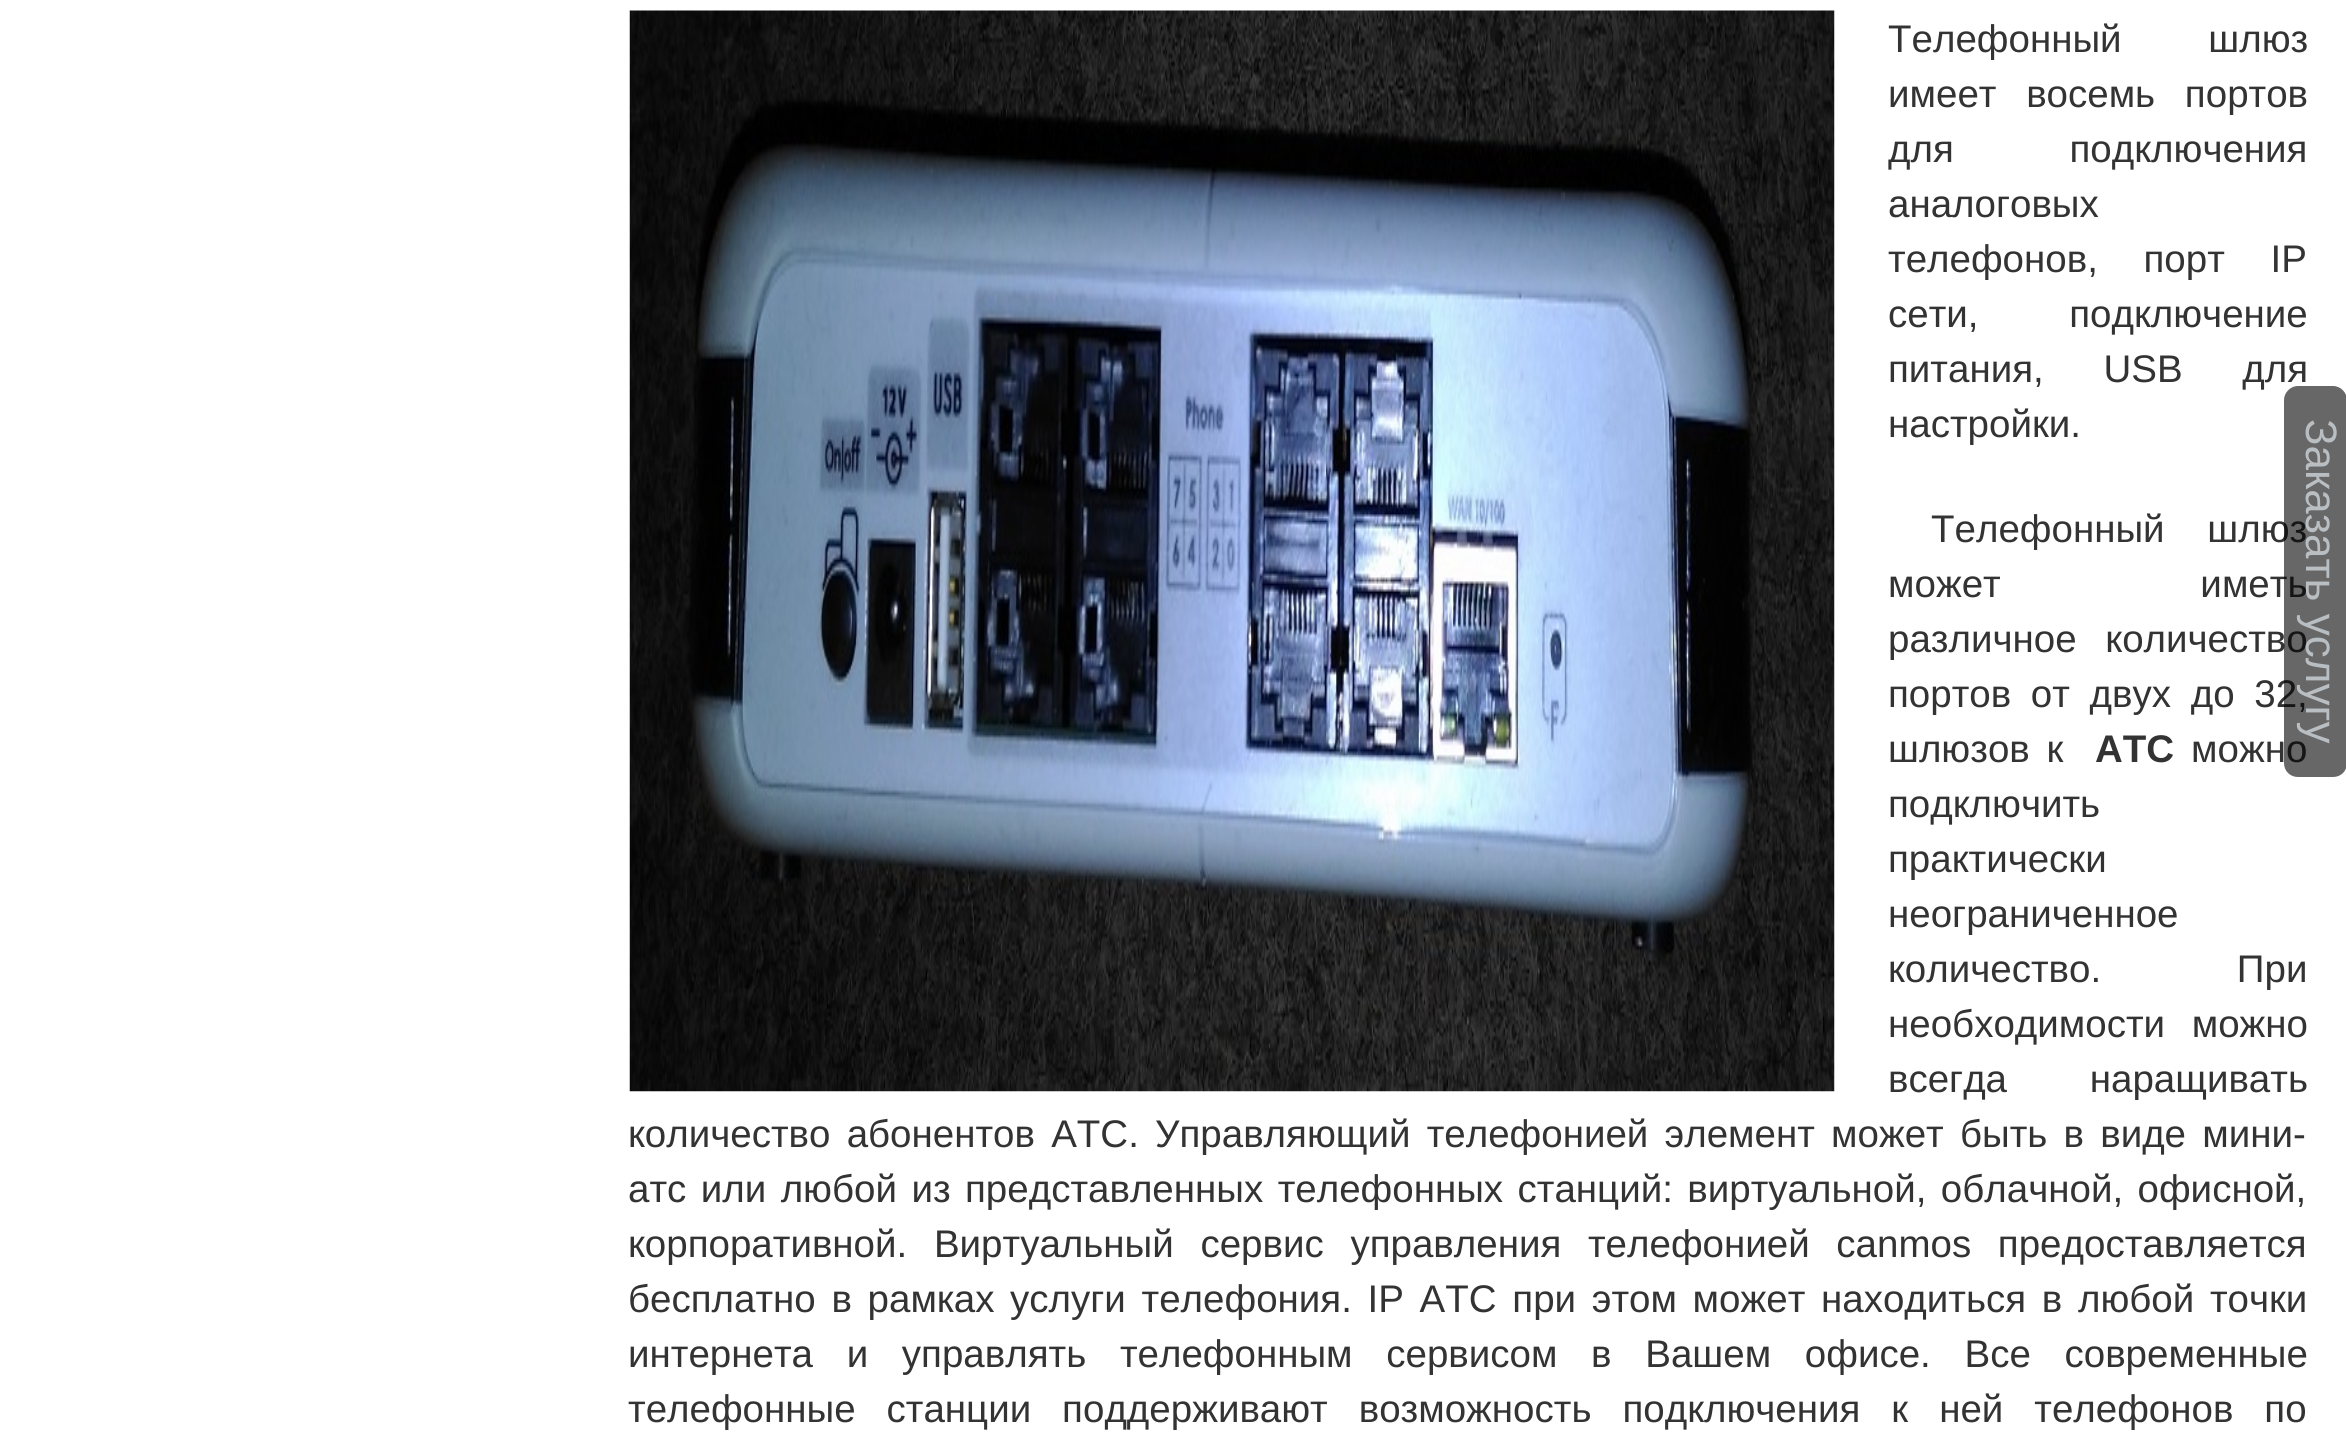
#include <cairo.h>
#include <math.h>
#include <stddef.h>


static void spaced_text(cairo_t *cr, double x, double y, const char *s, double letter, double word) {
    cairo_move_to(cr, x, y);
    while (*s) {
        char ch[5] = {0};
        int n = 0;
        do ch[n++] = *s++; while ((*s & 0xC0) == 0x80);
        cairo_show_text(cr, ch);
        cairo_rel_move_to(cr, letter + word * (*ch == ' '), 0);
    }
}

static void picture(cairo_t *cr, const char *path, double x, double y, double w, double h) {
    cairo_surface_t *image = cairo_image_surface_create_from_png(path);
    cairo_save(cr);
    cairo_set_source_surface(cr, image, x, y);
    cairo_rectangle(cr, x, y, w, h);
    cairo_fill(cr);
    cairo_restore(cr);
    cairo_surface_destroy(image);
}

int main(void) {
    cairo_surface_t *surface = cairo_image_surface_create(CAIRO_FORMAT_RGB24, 2346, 1440);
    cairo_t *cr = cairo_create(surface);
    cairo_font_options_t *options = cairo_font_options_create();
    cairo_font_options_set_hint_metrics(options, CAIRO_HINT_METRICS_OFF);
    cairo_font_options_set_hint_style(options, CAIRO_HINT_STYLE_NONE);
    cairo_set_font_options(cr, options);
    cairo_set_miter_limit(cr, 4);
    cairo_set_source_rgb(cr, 1, 1, 1);
    cairo_paint(cr);
    picture(cr, "img1.png", 629, 10, 1206, 1082);
    cairo_select_font_face(cr, "Liberation Sans", CAIRO_FONT_SLANT_NORMAL, CAIRO_FONT_WEIGHT_NORMAL);
    cairo_set_font_size(cr, 38.5);
    cairo_set_source_rgb(cr, 0.2, 0.2, 0.2);
    spaced_text(cr, 1888, 52, "Телефонный шлюз", 0, 76);
    spaced_text(cr, 1888, 107, "имеет восемь портов", 0, 19);
    spaced_text(cr, 1888, 162, "для подключения", 0, 105);
    cairo_move_to(cr, 1888, 217);
    cairo_show_text(cr, "аналоговых");
    spaced_text(cr, 1888, 272, "телефонов, порт IP", 0, 35);
    spaced_text(cr, 1888, 327, "сети, подключение", 0, 80);
    spaced_text(cr, 1888, 382, "питания, USB для", 0, 49);
    cairo_move_to(cr, 1888, 437);
    cairo_show_text(cr, "настройки.");
    spaced_text(cr, 1931, 542, "Телефонный шлюз", 0, 32);
    spaced_text(cr, 1888, 597, "может иметь", 0, 189);
    spaced_text(cr, 1888, 652, "различное количество", 0, 18);
    spaced_text(cr, 1888, 707, "портов от двух до 32,", 0, 9);
    spaced_text(cr, 1888, 762, "шлюзов к", 0, 6);
    cairo_select_font_face(cr, "Liberation Sans", CAIRO_FONT_SLANT_NORMAL, CAIRO_FONT_WEIGHT_BOLD);
    cairo_move_to(cr, 2095, 762);
    cairo_show_text(cr, "АТС");
    cairo_select_font_face(cr, "Liberation Sans", CAIRO_FONT_SLANT_NORMAL, CAIRO_FONT_WEIGHT_NORMAL);
    cairo_move_to(cr, 2191, 762);
    cairo_show_text(cr, "можно");
    cairo_move_to(cr, 1888, 817);
    cairo_show_text(cr, "подключить");
    cairo_move_to(cr, 1888, 872);
    cairo_show_text(cr, "практически");
    cairo_move_to(cr, 1888, 927);
    cairo_show_text(cr, "неограниченное");
    spaced_text(cr, 1888, 982, "количество. При", 0, 125);
    spaced_text(cr, 1888, 1037, "необходимости можно", 0, 16);
    spaced_text(cr, 1888, 1092, "всегда наращивать", 0, 72);
    spaced_text(cr, 628, 1147, "количество абонентов АТС. Управляющий телефонией элемент может быть в виде мини-", 0, 5.5);
    spaced_text(cr, 628, 1202, "атс или любой из представленных телефонных станций: виртуальной, облачной, офисной,", 0, 3.75);
    spaced_text(cr, 628, 1257, "корпоративной. Виртуальный сервис управления телефонией canmos предоставляется", 0, 16);
    spaced_text(cr, 628, 1312, "бесплатно в рамках услуги телефония. IP АТС при этом может находиться в любой точки", 0, 5);
    spaced_text(cr, 628, 1367, "интернета и управлять телефонным сервисом в Вашем офисе. Все современные", 0, 23);
    spaced_text(cr, 628, 1422, "телефонные станции поддерживают возможность подключения к ней телефонов по", 0, 20.25);
    cairo_set_source_rgba(cr, 0.012, 0.012, 0.012, 0.6);
    cairo_new_path(cr);
    cairo_move_to(cr, 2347, 400);
    cairo_line_to(cr, 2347, 763);
    cairo_curve_to(cr, 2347, 771, 2341, 777, 2333, 777);
    cairo_line_to(cr, 2298, 777);
    cairo_curve_to(cr, 2290, 777, 2284, 771, 2284, 763);
    cairo_line_to(cr, 2284, 400);
    cairo_curve_to(cr, 2284, 393, 2290, 386, 2298, 386);
    cairo_line_to(cr, 2333, 386);
    cairo_curve_to(cr, 2341, 386, 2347, 393, 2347, 400);
    cairo_close_path(cr);
    cairo_fill(cr);
    cairo_set_font_size(cr, 44);
    cairo_set_source_rgb(cr, 0.725, 0.745, 0.761);
    cairo_save(cr);
    cairo_translate(cr, 2306, 419);
    cairo_rotate(cr, 90 * M_PI / 180);
    cairo_move_to(cr, 0, 0);
    cairo_show_text(cr, "Заказать услугу");
    cairo_restore(cr);
    cairo_surface_write_to_png(surface, "page.png");
    cairo_font_options_destroy(options);
    cairo_destroy(cr);
    cairo_surface_destroy(surface);
    return 0;
}
